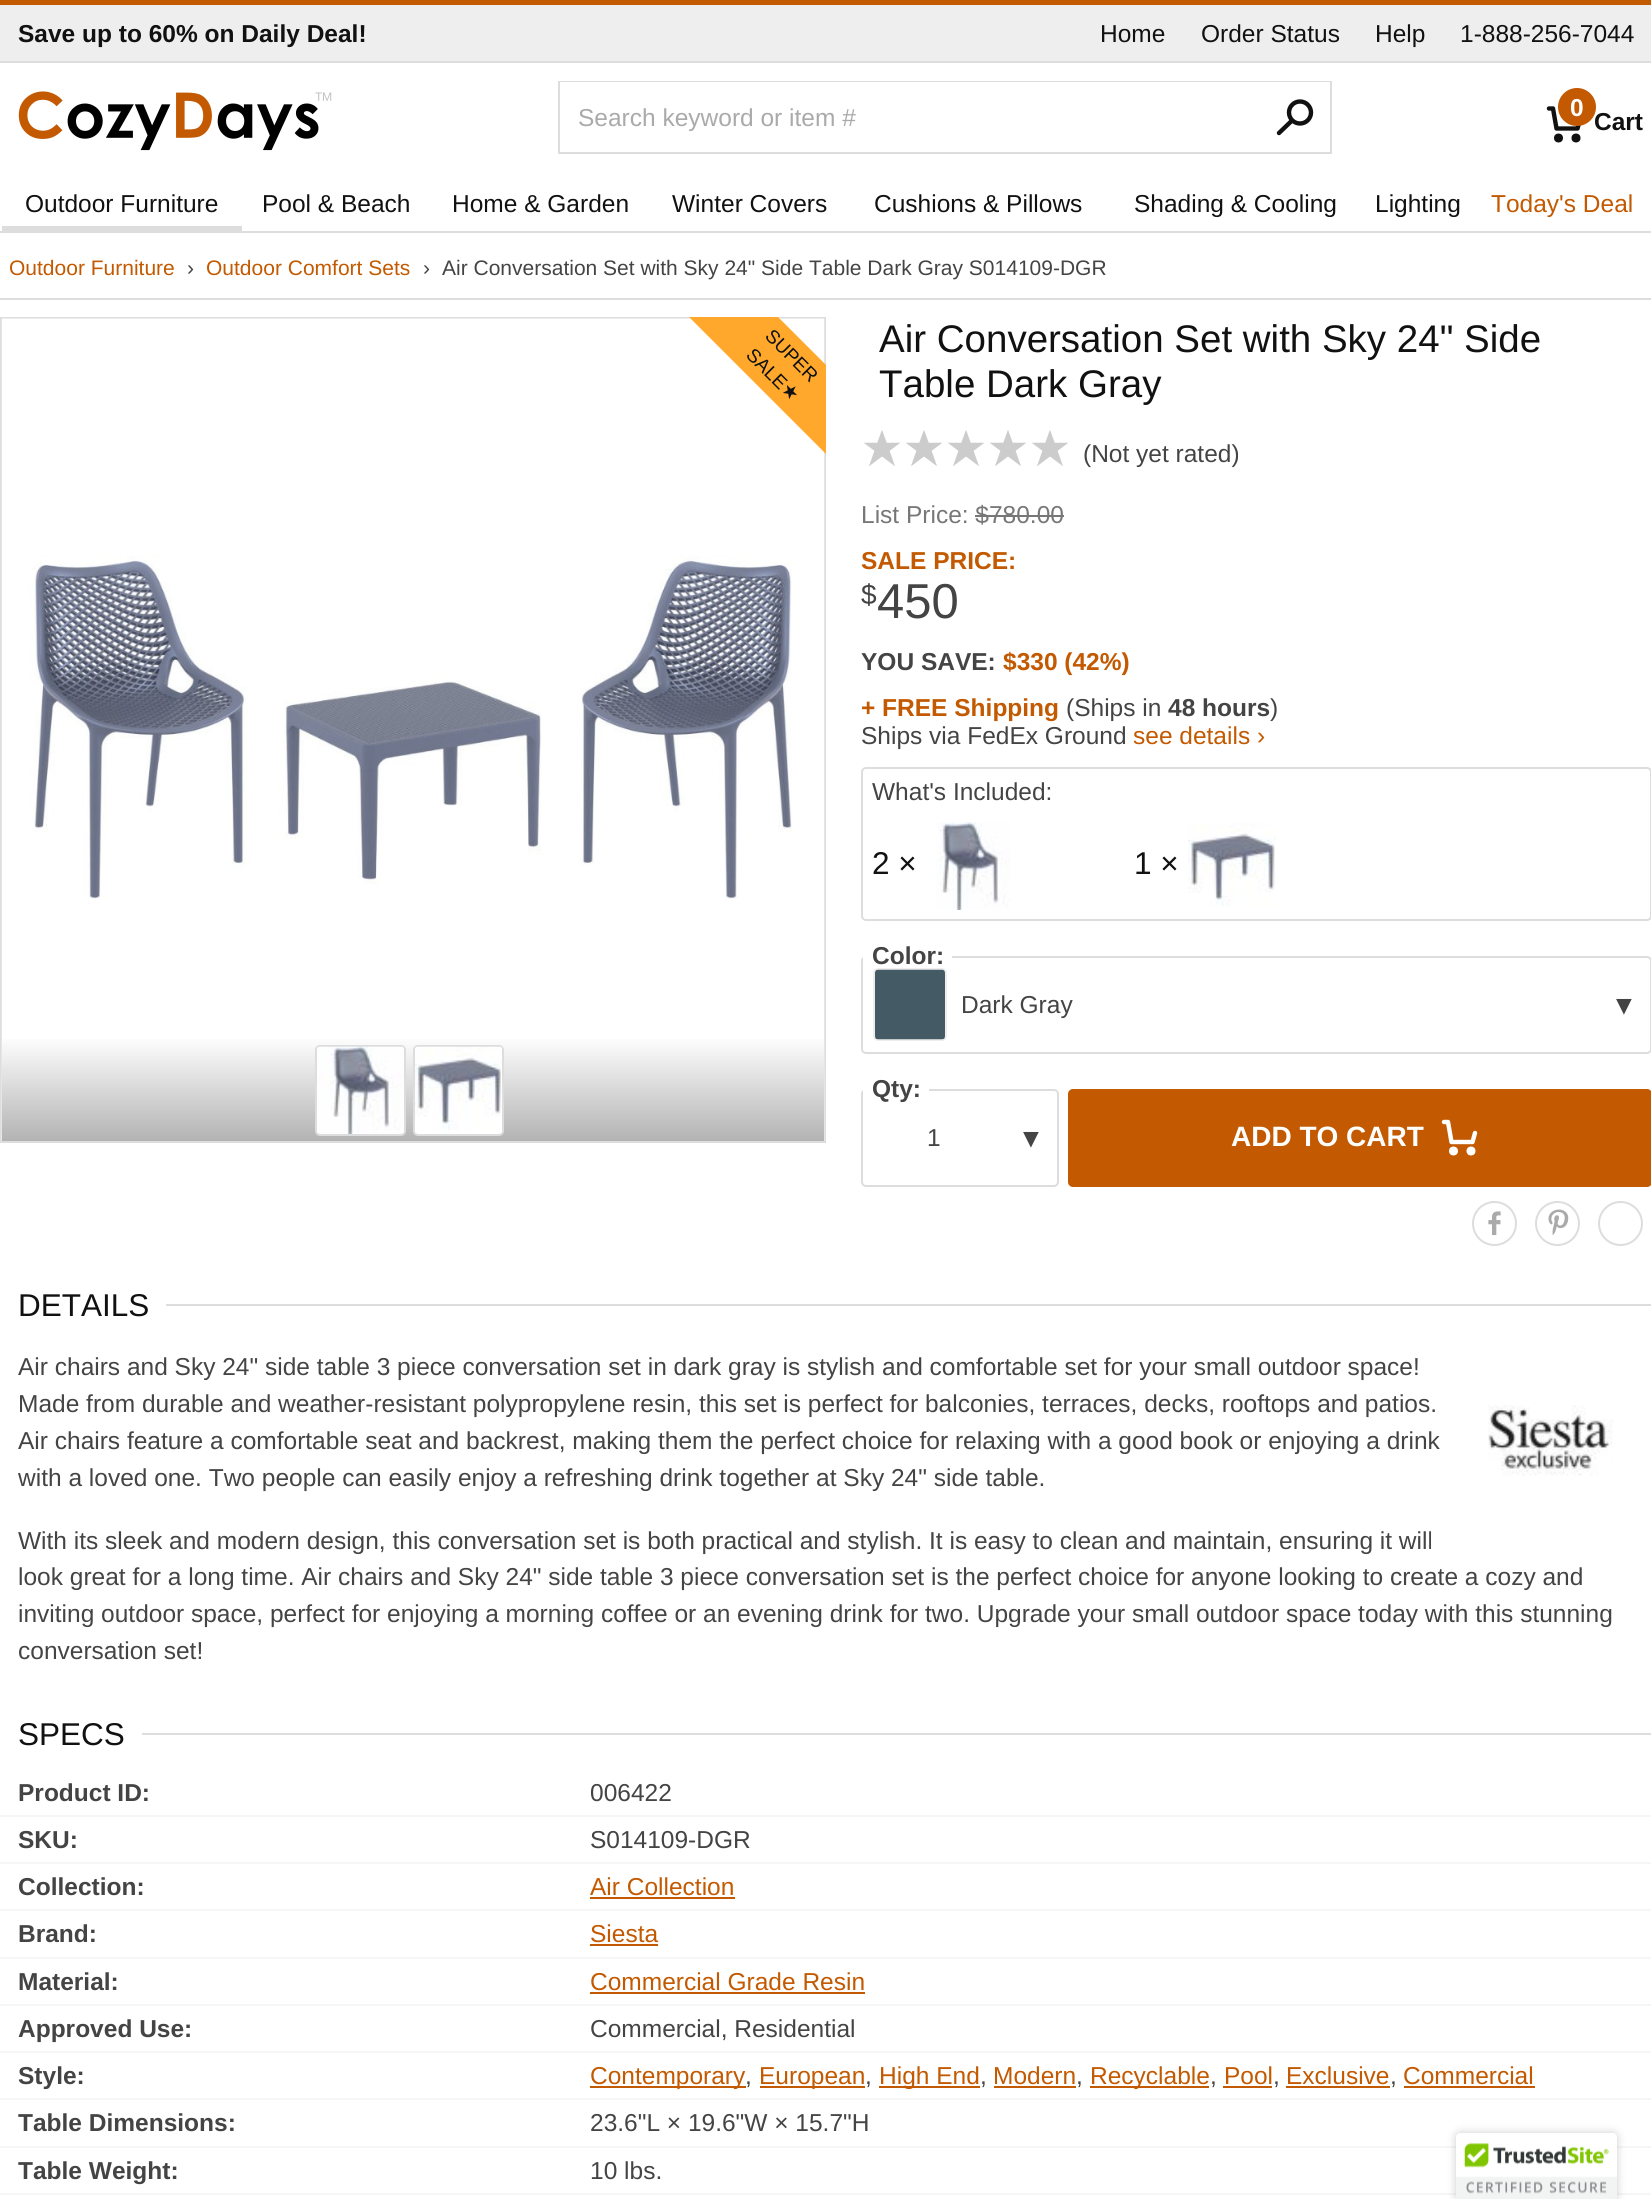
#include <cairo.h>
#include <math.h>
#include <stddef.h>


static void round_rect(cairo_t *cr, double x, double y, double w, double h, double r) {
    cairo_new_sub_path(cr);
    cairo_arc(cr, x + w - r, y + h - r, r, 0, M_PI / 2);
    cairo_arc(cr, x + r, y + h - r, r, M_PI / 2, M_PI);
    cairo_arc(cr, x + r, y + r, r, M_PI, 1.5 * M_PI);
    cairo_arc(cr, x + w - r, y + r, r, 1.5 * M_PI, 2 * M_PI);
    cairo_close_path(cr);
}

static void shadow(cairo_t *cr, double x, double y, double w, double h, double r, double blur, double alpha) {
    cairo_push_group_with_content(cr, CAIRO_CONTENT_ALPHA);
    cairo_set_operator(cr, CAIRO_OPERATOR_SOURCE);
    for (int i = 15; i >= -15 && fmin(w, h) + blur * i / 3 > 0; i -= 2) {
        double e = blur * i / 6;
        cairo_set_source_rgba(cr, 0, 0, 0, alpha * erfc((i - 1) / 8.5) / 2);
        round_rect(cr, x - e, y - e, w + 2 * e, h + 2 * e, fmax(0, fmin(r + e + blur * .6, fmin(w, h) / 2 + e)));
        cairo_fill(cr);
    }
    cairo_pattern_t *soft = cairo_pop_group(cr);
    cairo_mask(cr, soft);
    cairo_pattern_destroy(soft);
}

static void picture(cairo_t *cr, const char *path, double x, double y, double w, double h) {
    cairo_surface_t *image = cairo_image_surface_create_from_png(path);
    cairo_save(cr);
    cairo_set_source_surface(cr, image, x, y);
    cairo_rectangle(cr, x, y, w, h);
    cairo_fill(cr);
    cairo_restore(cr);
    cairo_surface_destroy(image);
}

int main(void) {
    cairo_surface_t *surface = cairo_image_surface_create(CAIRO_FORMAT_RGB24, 1651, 2199);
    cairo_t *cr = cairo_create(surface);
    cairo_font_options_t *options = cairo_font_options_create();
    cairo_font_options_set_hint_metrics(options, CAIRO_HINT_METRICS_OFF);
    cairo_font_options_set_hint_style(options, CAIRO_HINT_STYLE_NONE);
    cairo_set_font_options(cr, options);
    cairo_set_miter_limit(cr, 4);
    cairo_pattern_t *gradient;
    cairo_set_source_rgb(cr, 1, 1, 1);
    cairo_paint(cr);
    cairo_set_source_rgb(cr, 0.933, 0.933, 0.933);
    cairo_rectangle(cr, 0, 5, 1651, 56);
    cairo_fill(cr);
    cairo_set_source_rgb(cr, 0.765, 0.349, 0);
    cairo_rectangle(cr, 0, 0, 1651, 5);
    cairo_fill(cr);
    cairo_set_source_rgb(cr, 0.867, 0.867, 0.867);
    cairo_rectangle(cr, 0, 61, 1651, 2);
    cairo_fill(cr);
    cairo_select_font_face(cr, "Liberation Sans", CAIRO_FONT_SLANT_NORMAL, CAIRO_FONT_WEIGHT_BOLD);
    cairo_set_font_size(cr, 24.5);
    cairo_set_source_rgb(cr, 0.067, 0.067, 0.067);
    cairo_move_to(cr, 18, 42);
    cairo_show_text(cr, "Save up to 60% on Daily Deal!");
    cairo_select_font_face(cr, "Liberation Sans", CAIRO_FONT_SLANT_NORMAL, CAIRO_FONT_WEIGHT_NORMAL);
    cairo_move_to(cr, 1100, 42);
    cairo_show_text(cr, "Home");
    cairo_move_to(cr, 1201, 42);
    cairo_show_text(cr, "Order Status");
    cairo_move_to(cr, 1375, 42);
    cairo_show_text(cr, "Help");
    cairo_move_to(cr, 1460, 42);
    cairo_show_text(cr, "1-888-256-7044");
    picture(cr, "img1.png", 18, 91, 314, 60);
    cairo_rectangle(cr, 559, 82, 772, 71);
    cairo_set_source_rgb(cr, 0.867, 0.867, 0.867);
    cairo_stroke(cr);
    cairo_set_source_rgb(cr, 1, 1, 1);
    cairo_rectangle(cr, 560, 82, 770, 1);
    cairo_fill(cr);
    cairo_set_source_rgb(cr, 0.667, 0.667, 0.667);
    cairo_move_to(cr, 578, 126);
    cairo_show_text(cr, "Search keyword or item #");
    cairo_new_path(cr);
    cairo_move_to(cr, 1279, 133);
    cairo_line_to(cr, 1291.5, 121);
    cairo_set_source_rgb(cr, 0.067, 0.067, 0.067);
    cairo_set_line_width(cr, 4.4);
    cairo_set_line_cap(cr, CAIRO_LINE_CAP_ROUND);
    cairo_stroke(cr);
    cairo_arc(cr, 1300, 112.5, 11, 0, 2 * M_PI);
    cairo_set_line_cap(cr, CAIRO_LINE_CAP_BUTT);
    cairo_stroke(cr);
    cairo_new_path(cr);
    cairo_move_to(cr, 1549, 108.5);
    cairo_line_to(cr, 1552.5, 108.5);
    cairo_move_to(cr, 1553, 108.5);
    cairo_line_to(cr, 1556.5, 128.5);
    cairo_move_to(cr, 1556.5, 128.5);
    cairo_line_to(cr, 1577.5, 128.5);
    cairo_move_to(cr, 1577.5, 128.5);
    cairo_line_to(cr, 1580, 120);
    cairo_set_line_cap(cr, CAIRO_LINE_CAP_ROUND);
    cairo_stroke(cr);
    cairo_arc(cr, 1558.5, 138, 4.5, 0, 2 * M_PI);
    cairo_fill(cr);
    cairo_arc(cr, 1576, 138, 4.5, 0, 2 * M_PI);
    cairo_fill(cr);
    cairo_select_font_face(cr, "Liberation Sans", CAIRO_FONT_SLANT_NORMAL, CAIRO_FONT_WEIGHT_BOLD);
    cairo_move_to(cr, 1594, 130);
    cairo_show_text(cr, "Cart");
    cairo_set_source_rgb(cr, 0.765, 0.349, 0);
    cairo_new_path(cr);
    cairo_arc(cr, 1577, 107, 19, 0, 2 * M_PI);
    cairo_fill(cr);
    cairo_set_source_rgb(cr, 1, 1, 1);
    cairo_move_to(cr, 1570, 116);
    cairo_show_text(cr, "0");
    cairo_set_source_rgb(cr, 0.867, 0.867, 0.867);
    cairo_rectangle(cr, 0, 231, 1651, 2);
    cairo_fill(cr);
    cairo_rectangle(cr, 2, 226, 240, 5);
    cairo_fill(cr);
    cairo_select_font_face(cr, "Liberation Sans", CAIRO_FONT_SLANT_NORMAL, CAIRO_FONT_WEIGHT_NORMAL);
    cairo_set_source_rgb(cr, 0.067, 0.067, 0.067);
    cairo_move_to(cr, 25, 212);
    cairo_show_text(cr, "Outdoor Furniture");
    cairo_move_to(cr, 262, 212);
    cairo_show_text(cr, "Pool & Beach");
    cairo_move_to(cr, 452, 212);
    cairo_show_text(cr, "Home & Garden");
    cairo_move_to(cr, 672, 212);
    cairo_show_text(cr, "Winter Covers");
    cairo_move_to(cr, 874, 212);
    cairo_show_text(cr, "Cushions & Pillows");
    cairo_move_to(cr, 1134, 212);
    cairo_show_text(cr, "Shading & Cooling");
    cairo_move_to(cr, 1375, 212);
    cairo_show_text(cr, "Lighting");
    cairo_set_source_rgb(cr, 0.765, 0.349, 0);
    cairo_move_to(cr, 1491, 212);
    cairo_show_text(cr, "Today's Deal");
    cairo_set_source_rgb(cr, 0.867, 0.867, 0.867);
    cairo_rectangle(cr, 0, 298, 1651, 2);
    cairo_fill(cr);
    cairo_set_font_size(cr, 21);
    cairo_set_source_rgb(cr, 0.765, 0.349, 0);
    cairo_move_to(cr, 9, 275);
    cairo_show_text(cr, "Outdoor Furniture");
    cairo_set_source_rgb(cr, 0.267, 0.267, 0.267);
    cairo_move_to(cr, 187, 275);
    cairo_show_text(cr, "›");
    cairo_set_source_rgb(cr, 0.765, 0.349, 0);
    cairo_move_to(cr, 206, 275);
    cairo_show_text(cr, "Outdoor Comfort Sets");
    cairo_set_source_rgb(cr, 0.267, 0.267, 0.267);
    cairo_move_to(cr, 423, 275);
    cairo_show_text(cr, "›");
    cairo_move_to(cr, 442, 275);
    cairo_show_text(cr, "Air Conversation Set with Sky 24\" Side Table Dark Gray S014109-DGR");
    cairo_rectangle(cr, 1, 318, 824, 824);
    cairo_set_source_rgb(cr, 0.867, 0.867, 0.867);
    cairo_set_line_width(cr, 2);
    cairo_set_line_cap(cr, CAIRO_LINE_CAP_BUTT);
    cairo_stroke(cr);
    picture(cr, "img2.png", 1, 318, 824, 823);
    cairo_save(cr);
    cairo_rectangle(cr, 0, 317, 826, 826);
    cairo_clip(cr);
    cairo_set_source_rgb(cr, 1, 0.659, 0.169);
    cairo_new_path(cr);
    cairo_move_to(cr, 712, 251);
    cairo_line_to(cr, 897, 436);
    cairo_line_to(cr, 853, 481);
    cairo_line_to(cr, 667, 295);
    cairo_close_path(cr);
    cairo_fill(cr);
    cairo_restore(cr);
    cairo_set_font_size(cr, 19);
    cairo_set_source_rgb(cr, 0.067, 0.067, 0.067);
    cairo_save(cr);
    cairo_translate(cr, 764, 337);
    cairo_rotate(cr, 45 * M_PI / 180);
    cairo_move_to(cr, 0, 0);
    cairo_show_text(cr, "SUPER");
    cairo_restore(cr);
    cairo_save(cr);
    cairo_translate(cr, 745, 356);
    cairo_rotate(cr, 45 * M_PI / 180);
    cairo_move_to(cr, 0, 0);
    cairo_show_text(cr, "SALE");
    cairo_restore(cr);
    cairo_select_font_face(cr, "DejaVu Sans", CAIRO_FONT_SLANT_NORMAL, CAIRO_FONT_WEIGHT_NORMAL);
    cairo_save(cr);
    cairo_translate(cr, 780, 390);
    cairo_rotate(cr, 45 * M_PI / 180);
    cairo_move_to(cr, 0, 0);
    cairo_show_text(cr, "★");
    cairo_restore(cr);
    gradient = cairo_pattern_create_linear(413, 1036, 413, 1141);
    cairo_pattern_add_color_stop_rgba(gradient, 0, 1, 1, 1, 1);
    cairo_pattern_add_color_stop_rgba(gradient, 1, 0.702, 0.702, 0.702, 1);
    cairo_set_source(cr, gradient);
    cairo_pattern_destroy(gradient);
    cairo_rectangle(cr, 2, 1039, 822, 102);
    cairo_fill(cr);
    round_rect(cr, 316, 1046, 89, 89, 4);
    cairo_set_source_rgb(cr, 0.867, 0.867, 0.867);
    cairo_stroke(cr);
    picture(cr, "img3.png", 317, 1046, 87, 88);
    round_rect(cr, 414, 1046, 89, 89, 4);
    cairo_stroke(cr);
    picture(cr, "img4.png", 415, 1046, 87, 88);
    cairo_select_font_face(cr, "Liberation Sans", CAIRO_FONT_SLANT_NORMAL, CAIRO_FONT_WEIGHT_NORMAL);
    cairo_set_font_size(cr, 38.5);
    cairo_set_source_rgb(cr, 0.067, 0.067, 0.067);
    cairo_move_to(cr, 879, 352);
    cairo_show_text(cr, "Air Conversation Set with Sky 24\" Side");
    cairo_move_to(cr, 879, 397);
    cairo_show_text(cr, "Table Dark Gray");
    picture(cr, "img5.png", 864, 430, 204, 36);
    cairo_set_font_size(cr, 24.5);
    cairo_set_source_rgb(cr, 0.267, 0.267, 0.267);
    cairo_move_to(cr, 1083, 462);
    cairo_show_text(cr, "(Not yet rated)");
    cairo_set_source_rgb(cr, 0.467, 0.467, 0.467);
    cairo_move_to(cr, 861, 523);
    cairo_show_text(cr, "List Price: $780.00");
    cairo_rectangle(cr, 975, 515, 89, 2);
    cairo_fill(cr);
    cairo_select_font_face(cr, "Liberation Sans", CAIRO_FONT_SLANT_NORMAL, CAIRO_FONT_WEIGHT_BOLD);
    cairo_set_source_rgb(cr, 0.765, 0.349, 0);
    cairo_move_to(cr, 861, 569);
    cairo_show_text(cr, "SALE PRICE:");
    cairo_select_font_face(cr, "Liberation Sans", CAIRO_FONT_SLANT_NORMAL, CAIRO_FONT_WEIGHT_NORMAL);
    cairo_set_font_size(cr, 28);
    cairo_set_source_rgb(cr, 0.267, 0.267, 0.267);
    cairo_move_to(cr, 861, 604);
    cairo_show_text(cr, "$");
    cairo_set_font_size(cr, 49);
    cairo_move_to(cr, 877, 618);
    cairo_show_text(cr, "450");
    cairo_select_font_face(cr, "Liberation Sans", CAIRO_FONT_SLANT_NORMAL, CAIRO_FONT_WEIGHT_BOLD);
    cairo_set_font_size(cr, 24.5);
    cairo_move_to(cr, 861, 670);
    cairo_show_text(cr, "YOU SAVE:");
    cairo_set_source_rgb(cr, 0.765, 0.349, 0);
    cairo_move_to(cr, 1003, 670);
    cairo_show_text(cr, "$330 (42%)");
    cairo_move_to(cr, 861, 716);
    cairo_show_text(cr, "+ FREE Shipping");
    cairo_select_font_face(cr, "Liberation Sans", CAIRO_FONT_SLANT_NORMAL, CAIRO_FONT_WEIGHT_NORMAL);
    cairo_set_source_rgb(cr, 0.267, 0.267, 0.267);
    cairo_move_to(cr, 1066, 716);
    cairo_show_text(cr, "(Ships in");
    cairo_select_font_face(cr, "Liberation Sans", CAIRO_FONT_SLANT_NORMAL, CAIRO_FONT_WEIGHT_BOLD);
    cairo_move_to(cr, 1168, 716);
    cairo_show_text(cr, "48 hours");
    cairo_select_font_face(cr, "Liberation Sans", CAIRO_FONT_SLANT_NORMAL, CAIRO_FONT_WEIGHT_NORMAL);
    cairo_move_to(cr, 1270, 716);
    cairo_show_text(cr, ")");
    cairo_move_to(cr, 861, 744);
    cairo_show_text(cr, "Ships via FedEx Ground");
    cairo_set_source_rgb(cr, 0.765, 0.349, 0);
    cairo_move_to(cr, 1133, 744);
    cairo_show_text(cr, "see details ›");
    round_rect(cr, 862, 768, 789, 152, 4);
    cairo_set_source_rgb(cr, 0.867, 0.867, 0.867);
    cairo_stroke(cr);
    cairo_set_source_rgb(cr, 0.267, 0.267, 0.267);
    cairo_move_to(cr, 872, 800);
    cairo_show_text(cr, "What's Included:");
    cairo_set_font_size(cr, 31.5);
    cairo_set_source_rgb(cr, 0.067, 0.067, 0.067);
    cairo_move_to(cr, 872, 874);
    cairo_show_text(cr, "2 ×");
    picture(cr, "img6.png", 936, 822, 74, 88);
    cairo_move_to(cr, 1134, 874);
    cairo_show_text(cr, "1 ×");
    picture(cr, "img7.png", 1188, 823, 88, 84);
    round_rect(cr, 862, 957, 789, 96, 4);
    cairo_set_source_rgb(cr, 0.867, 0.867, 0.867);
    cairo_stroke(cr);
    cairo_set_source_rgb(cr, 1, 1, 1);
    cairo_rectangle(cr, 863, 956, 89, 5);
    cairo_fill(cr);
    cairo_select_font_face(cr, "Liberation Sans", CAIRO_FONT_SLANT_NORMAL, CAIRO_FONT_WEIGHT_BOLD);
    cairo_set_font_size(cr, 24.5);
    cairo_set_source_rgb(cr, 0.267, 0.267, 0.267);
    cairo_move_to(cr, 872, 964);
    cairo_show_text(cr, "Color:");
    round_rect(cr, 874, 969, 72, 71, 4);
    cairo_set_source_rgb(cr, 0.933, 0.933, 0.933);
    cairo_stroke(cr);
    picture(cr, "img8.png", 875, 969, 70, 71);
    cairo_select_font_face(cr, "Liberation Sans", CAIRO_FONT_SLANT_NORMAL, CAIRO_FONT_WEIGHT_NORMAL);
    cairo_set_source_rgb(cr, 0.267, 0.267, 0.267);
    cairo_move_to(cr, 961, 1013);
    cairo_show_text(cr, "Dark Gray");
    cairo_select_font_face(cr, "DejaVu Sans", CAIRO_FONT_SLANT_NORMAL, CAIRO_FONT_WEIGHT_NORMAL);
    cairo_set_font_size(cr, 31.5);
    cairo_move_to(cr, 1616, 1015);
    cairo_show_text(cr, "▾");
    round_rect(cr, 862, 1090, 196, 96, 4);
    cairo_set_source_rgb(cr, 0.867, 0.867, 0.867);
    cairo_stroke(cr);
    cairo_set_source_rgb(cr, 1, 1, 1);
    cairo_rectangle(cr, 863, 1089, 66, 5);
    cairo_fill(cr);
    cairo_select_font_face(cr, "Liberation Sans", CAIRO_FONT_SLANT_NORMAL, CAIRO_FONT_WEIGHT_BOLD);
    cairo_set_font_size(cr, 24.5);
    cairo_set_source_rgb(cr, 0.267, 0.267, 0.267);
    cairo_move_to(cr, 872, 1097);
    cairo_show_text(cr, "Qty:");
    cairo_select_font_face(cr, "Liberation Sans", CAIRO_FONT_SLANT_NORMAL, CAIRO_FONT_WEIGHT_NORMAL);
    cairo_move_to(cr, 927, 1146);
    cairo_show_text(cr, "1");
    cairo_select_font_face(cr, "DejaVu Sans", CAIRO_FONT_SLANT_NORMAL, CAIRO_FONT_WEIGHT_NORMAL);
    cairo_set_font_size(cr, 31.5);
    cairo_move_to(cr, 1023, 1148);
    cairo_show_text(cr, "▾");
    cairo_set_source_rgb(cr, 0.765, 0.349, 0);
    round_rect(cr, 1068, 1089, 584, 98, 5);
    cairo_fill(cr);
    cairo_select_font_face(cr, "Liberation Sans", CAIRO_FONT_SLANT_NORMAL, CAIRO_FONT_WEIGHT_BOLD);
    cairo_set_font_size(cr, 28);
    cairo_set_source_rgb(cr, 1, 1, 1);
    cairo_move_to(cr, 1231, 1146);
    cairo_show_text(cr, "ADD TO CART");
    cairo_new_path(cr);
    cairo_move_to(cr, 1444, 1122);
    cairo_line_to(cr, 1447.5, 1122);
    cairo_move_to(cr, 1448, 1122);
    cairo_line_to(cr, 1451.5, 1142);
    cairo_move_to(cr, 1451.5, 1142);
    cairo_line_to(cr, 1472.5, 1142);
    cairo_move_to(cr, 1472.5, 1142);
    cairo_line_to(cr, 1475, 1133);
    cairo_set_line_width(cr, 4.4);
    cairo_set_line_cap(cr, CAIRO_LINE_CAP_ROUND);
    cairo_stroke(cr);
    cairo_arc(cr, 1453.5, 1151, 4.5, 0, 2 * M_PI);
    cairo_fill(cr);
    cairo_arc(cr, 1471, 1151, 4.5, 0, 2 * M_PI);
    cairo_fill(cr);
    picture(cr, "img9.png", 1488, 1211, 13, 25);
    cairo_arc(cr, 1494.5, 1223.5, 21.5, 0, 2 * M_PI);
    cairo_set_source_rgb(cr, 0.867, 0.867, 0.867);
    cairo_set_line_width(cr, 2);
    cairo_set_line_cap(cr, CAIRO_LINE_CAP_BUTT);
    cairo_stroke(cr);
    picture(cr, "img10.png", 1548, 1209, 21, 26);
    cairo_arc(cr, 1557.5, 1223.5, 21.5, 0, 2 * M_PI);
    cairo_stroke(cr);
    cairo_arc(cr, 1620.5, 1223.5, 21.5, 0, 2 * M_PI);
    cairo_stroke(cr);
    cairo_select_font_face(cr, "Liberation Sans", CAIRO_FONT_SLANT_NORMAL, CAIRO_FONT_WEIGHT_NORMAL);
    cairo_set_font_size(cr, 31.5);
    cairo_set_source_rgb(cr, 0.067, 0.067, 0.067);
    cairo_move_to(cr, 18, 1316);
    cairo_show_text(cr, "DETAILS");
    cairo_set_source_rgb(cr, 0.867, 0.867, 0.867);
    cairo_rectangle(cr, 166, 1304, 1485, 2);
    cairo_fill(cr);
    cairo_set_font_size(cr, 24.5);
    cairo_set_source_rgb(cr, 0.267, 0.267, 0.267);
    cairo_move_to(cr, 18, 1375);
    cairo_show_text(cr, "Air chairs and Sky 24\" side table 3 piece conversation set in dark gray is stylish and comfortable set for your small outdoor space!");
    cairo_move_to(cr, 18, 1412);
    cairo_show_text(cr, "Made from durable and weather-resistant polypropylene resin, this set is perfect for balconies, terraces, decks, rooftops and patios.");
    picture(cr, "img11.png", 1488, 1405, 125, 71);
    cairo_move_to(cr, 18, 1449);
    cairo_show_text(cr, "Air chairs feature a comfortable seat and backrest, making them the perfect choice for relaxing with a good book or enjoying a drink");
    cairo_move_to(cr, 18, 1486);
    cairo_show_text(cr, "with a loved one. Two people can easily enjoy a refreshing drink together at Sky 24\" side table.");
    cairo_move_to(cr, 18, 1549);
    cairo_show_text(cr, "With its sleek and modern design, this conversation set is both practical and stylish. It is easy to clean and maintain, ensuring it will");
    cairo_move_to(cr, 18, 1585);
    cairo_show_text(cr, "look great for a long time. Air chairs and Sky 24\" side table 3 piece conversation set is the perfect choice for anyone looking to create a cozy and");
    cairo_move_to(cr, 18, 1622);
    cairo_show_text(cr, "inviting outdoor space, perfect for enjoying a morning coffee or an evening drink for two. Upgrade your small outdoor space today with this stunning");
    cairo_move_to(cr, 18, 1659);
    cairo_show_text(cr, "conversation set!");
    cairo_set_font_size(cr, 31.5);
    cairo_set_source_rgb(cr, 0.067, 0.067, 0.067);
    cairo_move_to(cr, 18, 1745);
    cairo_show_text(cr, "SPECS");
    cairo_set_source_rgb(cr, 0.867, 0.867, 0.867);
    cairo_rectangle(cr, 142, 1733, 1509, 2);
    cairo_fill(cr);
    cairo_set_source_rgb(cr, 0.961, 0.961, 0.961);
    cairo_rectangle(cr, 0, 1815, 1651, 2);
    cairo_fill(cr);
    cairo_select_font_face(cr, "Liberation Sans", CAIRO_FONT_SLANT_NORMAL, CAIRO_FONT_WEIGHT_BOLD);
    cairo_set_font_size(cr, 24.5);
    cairo_set_source_rgb(cr, 0.267, 0.267, 0.267);
    cairo_move_to(cr, 18, 1801);
    cairo_show_text(cr, "Product ID:");
    cairo_select_font_face(cr, "Liberation Sans", CAIRO_FONT_SLANT_NORMAL, CAIRO_FONT_WEIGHT_NORMAL);
    cairo_move_to(cr, 590, 1801);
    cairo_show_text(cr, "006422");
    cairo_set_source_rgb(cr, 0.961, 0.961, 0.961);
    cairo_rectangle(cr, 0, 1862, 1651, 2);
    cairo_fill(cr);
    cairo_select_font_face(cr, "Liberation Sans", CAIRO_FONT_SLANT_NORMAL, CAIRO_FONT_WEIGHT_BOLD);
    cairo_set_source_rgb(cr, 0.267, 0.267, 0.267);
    cairo_move_to(cr, 18, 1848);
    cairo_show_text(cr, "SKU:");
    cairo_select_font_face(cr, "Liberation Sans", CAIRO_FONT_SLANT_NORMAL, CAIRO_FONT_WEIGHT_NORMAL);
    cairo_move_to(cr, 590, 1848);
    cairo_show_text(cr, "S014109-DGR");
    cairo_set_source_rgb(cr, 0.961, 0.961, 0.961);
    cairo_rectangle(cr, 0, 1909, 1651, 2);
    cairo_fill(cr);
    cairo_select_font_face(cr, "Liberation Sans", CAIRO_FONT_SLANT_NORMAL, CAIRO_FONT_WEIGHT_BOLD);
    cairo_set_source_rgb(cr, 0.267, 0.267, 0.267);
    cairo_move_to(cr, 18, 1895);
    cairo_show_text(cr, "Collection:");
    cairo_select_font_face(cr, "Liberation Sans", CAIRO_FONT_SLANT_NORMAL, CAIRO_FONT_WEIGHT_NORMAL);
    cairo_set_source_rgb(cr, 0.765, 0.349, 0);
    cairo_move_to(cr, 590, 1895);
    cairo_show_text(cr, "Air Collection");
    cairo_rectangle(cr, 590, 1897, 145, 2);
    cairo_fill(cr);
    cairo_set_source_rgb(cr, 0.961, 0.961, 0.961);
    cairo_rectangle(cr, 0, 1957, 1651, 2);
    cairo_fill(cr);
    cairo_select_font_face(cr, "Liberation Sans", CAIRO_FONT_SLANT_NORMAL, CAIRO_FONT_WEIGHT_BOLD);
    cairo_set_source_rgb(cr, 0.267, 0.267, 0.267);
    cairo_move_to(cr, 18, 1942);
    cairo_show_text(cr, "Brand:");
    cairo_select_font_face(cr, "Liberation Sans", CAIRO_FONT_SLANT_NORMAL, CAIRO_FONT_WEIGHT_NORMAL);
    cairo_set_source_rgb(cr, 0.765, 0.349, 0);
    cairo_move_to(cr, 590, 1942);
    cairo_show_text(cr, "Siesta");
    cairo_rectangle(cr, 590, 1944, 68, 2);
    cairo_fill(cr);
    cairo_set_source_rgb(cr, 0.961, 0.961, 0.961);
    cairo_rectangle(cr, 0, 2004, 1651, 2);
    cairo_fill(cr);
    cairo_select_font_face(cr, "Liberation Sans", CAIRO_FONT_SLANT_NORMAL, CAIRO_FONT_WEIGHT_BOLD);
    cairo_set_source_rgb(cr, 0.267, 0.267, 0.267);
    cairo_move_to(cr, 18, 1990);
    cairo_show_text(cr, "Material:");
    cairo_select_font_face(cr, "Liberation Sans", CAIRO_FONT_SLANT_NORMAL, CAIRO_FONT_WEIGHT_NORMAL);
    cairo_set_source_rgb(cr, 0.765, 0.349, 0);
    cairo_move_to(cr, 590, 1990);
    cairo_show_text(cr, "Commercial Grade Resin");
    cairo_rectangle(cr, 590, 1992, 275, 2);
    cairo_fill(cr);
    cairo_set_source_rgb(cr, 0.961, 0.961, 0.961);
    cairo_rectangle(cr, 0, 2051, 1651, 2);
    cairo_fill(cr);
    cairo_select_font_face(cr, "Liberation Sans", CAIRO_FONT_SLANT_NORMAL, CAIRO_FONT_WEIGHT_BOLD);
    cairo_set_source_rgb(cr, 0.267, 0.267, 0.267);
    cairo_move_to(cr, 18, 2037);
    cairo_show_text(cr, "Approved Use:");
    cairo_select_font_face(cr, "Liberation Sans", CAIRO_FONT_SLANT_NORMAL, CAIRO_FONT_WEIGHT_NORMAL);
    cairo_move_to(cr, 590, 2037);
    cairo_show_text(cr, "Commercial, Residential");
    cairo_set_source_rgb(cr, 0.961, 0.961, 0.961);
    cairo_rectangle(cr, 0, 2098, 1651, 2);
    cairo_fill(cr);
    cairo_select_font_face(cr, "Liberation Sans", CAIRO_FONT_SLANT_NORMAL, CAIRO_FONT_WEIGHT_BOLD);
    cairo_set_source_rgb(cr, 0.267, 0.267, 0.267);
    cairo_move_to(cr, 18, 2084);
    cairo_show_text(cr, "Style:");
    cairo_set_source_rgb(cr, 0.765, 0.349, 0);
    cairo_rectangle(cr, 590, 2086, 156, 2);
    cairo_fill(cr);
    cairo_select_font_face(cr, "Liberation Sans", CAIRO_FONT_SLANT_NORMAL, CAIRO_FONT_WEIGHT_NORMAL);
    cairo_move_to(cr, 590, 2084);
    cairo_show_text(cr, "Contemporary");
    cairo_set_source_rgb(cr, 0.267, 0.267, 0.267);
    cairo_move_to(cr, 745, 2084);
    cairo_show_text(cr, ",");
    cairo_set_source_rgb(cr, 0.765, 0.349, 0);
    cairo_rectangle(cr, 760, 2086, 105, 2);
    cairo_fill(cr);
    cairo_move_to(cr, 759, 2084);
    cairo_show_text(cr, "European");
    cairo_set_source_rgb(cr, 0.267, 0.267, 0.267);
    cairo_move_to(cr, 865, 2084);
    cairo_show_text(cr, ",");
    cairo_set_source_rgb(cr, 0.765, 0.349, 0);
    cairo_rectangle(cr, 879, 2086, 101, 2);
    cairo_fill(cr);
    cairo_move_to(cr, 879, 2084);
    cairo_show_text(cr, "High End");
    cairo_set_source_rgb(cr, 0.267, 0.267, 0.267);
    cairo_move_to(cr, 980, 2084);
    cairo_show_text(cr, ",");
    cairo_set_source_rgb(cr, 0.765, 0.349, 0);
    cairo_move_to(cr, 993, 2084);
    cairo_show_text(cr, "Modern");
    cairo_rectangle(cr, 994, 2086, 82, 2);
    cairo_fill(cr);
    cairo_set_source_rgb(cr, 0.267, 0.267, 0.267);
    cairo_move_to(cr, 1076, 2084);
    cairo_show_text(cr, ",");
    cairo_set_source_rgb(cr, 0.765, 0.349, 0);
    cairo_rectangle(cr, 1090, 2086, 119, 2);
    cairo_fill(cr);
    cairo_move_to(cr, 1090, 2084);
    cairo_show_text(cr, "Recyclable");
    cairo_set_source_rgb(cr, 0.267, 0.267, 0.267);
    cairo_move_to(cr, 1210, 2084);
    cairo_show_text(cr, ",");
    cairo_set_source_rgb(cr, 0.765, 0.349, 0);
    cairo_move_to(cr, 1224, 2084);
    cairo_show_text(cr, "Pool");
    cairo_rectangle(cr, 1223, 2086, 49, 2);
    cairo_fill(cr);
    cairo_set_source_rgb(cr, 0.267, 0.267, 0.267);
    cairo_move_to(cr, 1273, 2084);
    cairo_show_text(cr, ",");
    cairo_set_source_rgb(cr, 0.765, 0.349, 0);
    cairo_move_to(cr, 1286, 2084);
    cairo_show_text(cr, "Exclusive");
    cairo_rectangle(cr, 1286, 2086, 104, 2);
    cairo_fill(cr);
    cairo_set_source_rgb(cr, 0.267, 0.267, 0.267);
    cairo_move_to(cr, 1390, 2084);
    cairo_show_text(cr, ",");
    cairo_set_source_rgb(cr, 0.765, 0.349, 0);
    cairo_move_to(cr, 1403, 2084);
    cairo_show_text(cr, "Commercial");
    cairo_rectangle(cr, 1404, 2086, 131, 2);
    cairo_fill(cr);
    cairo_set_source_rgb(cr, 0.961, 0.961, 0.961);
    cairo_rectangle(cr, 0, 2146, 1651, 2);
    cairo_fill(cr);
    cairo_select_font_face(cr, "Liberation Sans", CAIRO_FONT_SLANT_NORMAL, CAIRO_FONT_WEIGHT_BOLD);
    cairo_set_source_rgb(cr, 0.267, 0.267, 0.267);
    cairo_move_to(cr, 18, 2131);
    cairo_show_text(cr, "Table Dimensions:");
    cairo_select_font_face(cr, "Liberation Sans", CAIRO_FONT_SLANT_NORMAL, CAIRO_FONT_WEIGHT_NORMAL);
    cairo_move_to(cr, 590, 2131);
    cairo_show_text(cr, "23.6\"L × 19.6\"W × 15.7\"H");
    cairo_set_source_rgb(cr, 0.961, 0.961, 0.961);
    cairo_rectangle(cr, 0, 2193, 1651, 2);
    cairo_fill(cr);
    cairo_select_font_face(cr, "Liberation Sans", CAIRO_FONT_SLANT_NORMAL, CAIRO_FONT_WEIGHT_BOLD);
    cairo_set_source_rgb(cr, 0.267, 0.267, 0.267);
    cairo_move_to(cr, 18, 2179);
    cairo_show_text(cr, "Table Weight:");
    cairo_select_font_face(cr, "Liberation Sans", CAIRO_FONT_SLANT_NORMAL, CAIRO_FONT_WEIGHT_NORMAL);
    cairo_move_to(cr, 590, 2179);
    cairo_show_text(cr, "10 lbs.");
    cairo_set_source_rgb(cr, 0, 0, 0);
    shadow(cr, 1456, 2133, 161, 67, 4, 4.5, 0.2);
    cairo_set_source_rgb(cr, 1, 1, 1);
    cairo_new_path(cr);
    cairo_move_to(cr, 1460, 2133);
    cairo_line_to(cr, 1613, 2133);
    cairo_curve_to(cr, 1615, 2133, 1617, 2135, 1617, 2137);
    cairo_line_to(cr, 1617, 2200);
    cairo_line_to(cr, 1456, 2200);
    cairo_line_to(cr, 1456, 2137);
    cairo_curve_to(cr, 1456, 2135, 1458, 2133, 1460, 2133);
    cairo_close_path(cr);
    cairo_fill(cr);
    picture(cr, "img12.png", 1456, 2142, 161, 57);
    cairo_surface_write_to_png(surface, "page.png");
    cairo_font_options_destroy(options);
    cairo_destroy(cr);
    cairo_surface_destroy(surface);
    return 0;
}
